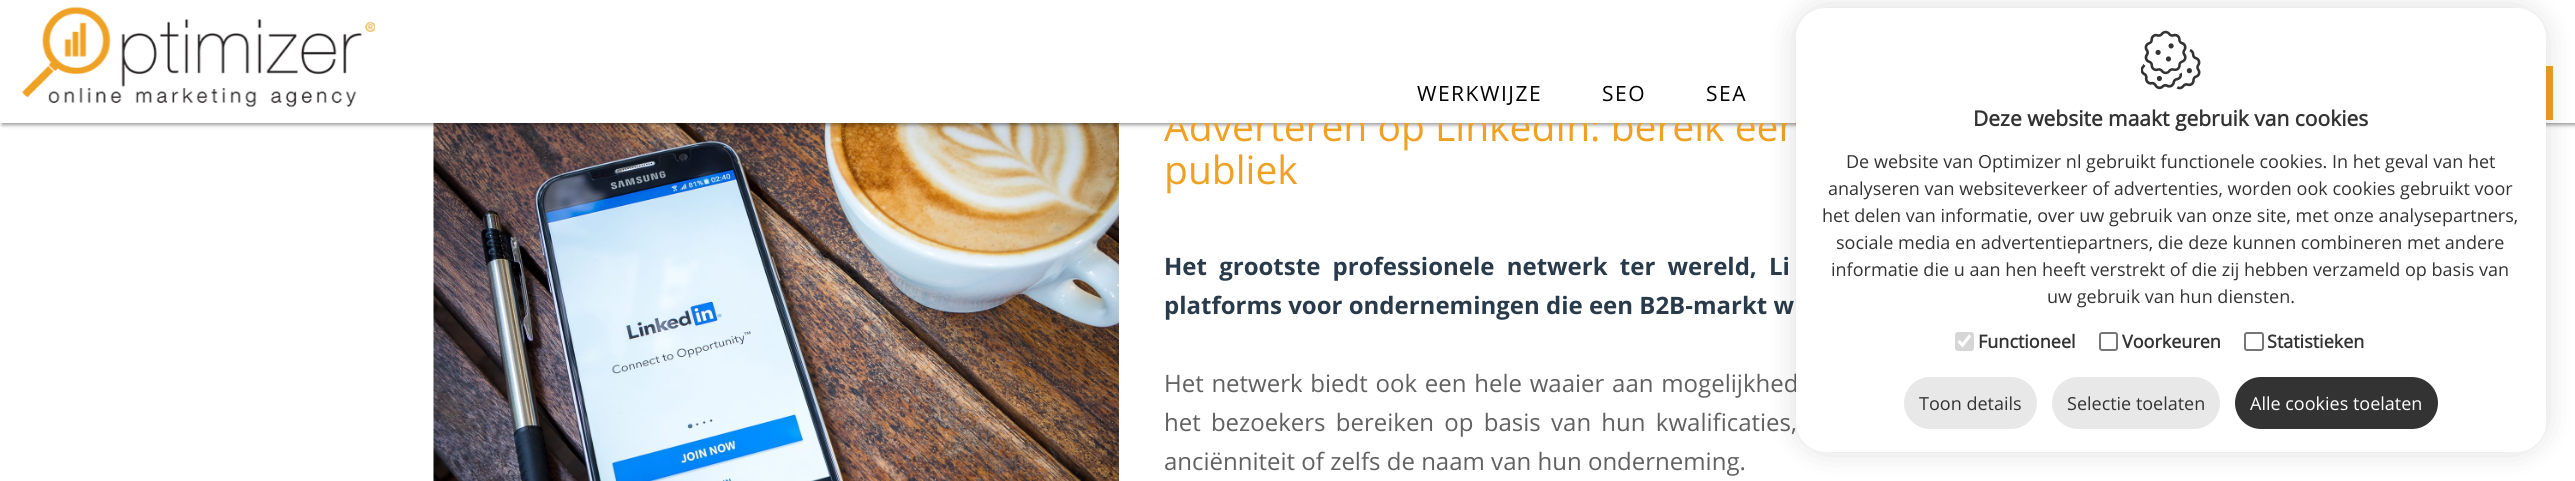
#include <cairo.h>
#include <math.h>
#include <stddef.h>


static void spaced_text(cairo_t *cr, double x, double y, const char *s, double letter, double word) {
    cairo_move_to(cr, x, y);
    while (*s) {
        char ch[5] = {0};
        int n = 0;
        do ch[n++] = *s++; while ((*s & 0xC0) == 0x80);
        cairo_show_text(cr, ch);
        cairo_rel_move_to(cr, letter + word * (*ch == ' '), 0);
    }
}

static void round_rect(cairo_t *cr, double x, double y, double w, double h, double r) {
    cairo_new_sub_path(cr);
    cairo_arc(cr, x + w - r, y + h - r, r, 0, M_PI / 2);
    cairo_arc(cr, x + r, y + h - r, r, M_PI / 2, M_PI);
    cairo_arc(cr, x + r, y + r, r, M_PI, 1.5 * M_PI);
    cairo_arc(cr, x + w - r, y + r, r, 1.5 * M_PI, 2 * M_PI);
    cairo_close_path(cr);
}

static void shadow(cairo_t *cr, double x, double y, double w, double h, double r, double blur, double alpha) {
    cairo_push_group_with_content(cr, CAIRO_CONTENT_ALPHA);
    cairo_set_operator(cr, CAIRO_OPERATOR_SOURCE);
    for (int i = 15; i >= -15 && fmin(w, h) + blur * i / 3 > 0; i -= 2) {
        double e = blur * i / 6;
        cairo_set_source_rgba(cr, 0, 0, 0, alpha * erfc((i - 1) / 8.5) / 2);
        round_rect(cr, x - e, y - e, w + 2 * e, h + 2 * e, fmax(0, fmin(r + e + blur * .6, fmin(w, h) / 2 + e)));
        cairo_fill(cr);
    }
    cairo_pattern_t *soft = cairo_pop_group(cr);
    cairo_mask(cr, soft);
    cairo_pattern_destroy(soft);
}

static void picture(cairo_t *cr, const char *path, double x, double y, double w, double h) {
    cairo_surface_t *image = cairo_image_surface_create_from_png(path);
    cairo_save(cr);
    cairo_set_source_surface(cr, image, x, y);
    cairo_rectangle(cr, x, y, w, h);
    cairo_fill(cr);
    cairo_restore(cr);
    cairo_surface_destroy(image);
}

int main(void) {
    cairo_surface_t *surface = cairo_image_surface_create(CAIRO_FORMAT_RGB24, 2575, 481);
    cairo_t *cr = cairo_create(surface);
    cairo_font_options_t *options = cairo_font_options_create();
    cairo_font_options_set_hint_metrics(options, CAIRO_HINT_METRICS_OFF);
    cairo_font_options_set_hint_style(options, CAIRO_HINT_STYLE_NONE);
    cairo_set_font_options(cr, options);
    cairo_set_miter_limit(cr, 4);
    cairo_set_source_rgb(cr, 1, 1, 1);
    cairo_paint(cr);
    picture(cr, "img2.png", 433, 123, 686, 358);
    cairo_set_source_rgb(cr, 0, 0, 0);
    shadow(cr, 2, 2, 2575, 123, 0, 2, 0.4);
    cairo_select_font_face(cr, "Open Sans", CAIRO_FONT_SLANT_NORMAL, CAIRO_FONT_WEIGHT_NORMAL);
    cairo_set_font_size(cr, 39);
    cairo_set_source_rgb(cr, 0.937, 0.631, 0.145);
    cairo_move_to(cr, 1164, 141);
    cairo_show_text(cr, "Adverteren op LinkedIn: bereik een");
    cairo_set_source_rgb(cr, 1, 1, 1);
    cairo_rectangle(cr, 0, 0, 2575, 123);
    cairo_fill(cr);
    picture(cr, "img1.png", 22, 7, 353, 100);
    cairo_set_font_size(cr, 21);
    cairo_set_source_rgb(cr, 0, 0, 0);
    spaced_text(cr, 1417, 101, "WERKWIJZE", 1.5, 0);
    spaced_text(cr, 1602, 101, "SEO", 1.5, 0);
    spaced_text(cr, 1706, 101, "SEA", 1.5, 0);
    cairo_set_source_rgb(cr, 0.937, 0.631, 0.145);
    cairo_rectangle(cr, 2546, 66, 7, 54);
    cairo_fill(cr);
    cairo_set_font_size(cr, 39);
    cairo_move_to(cr, 1164, 184);
    cairo_show_text(cr, "publiek");
    cairo_select_font_face(cr, "Open Sans", CAIRO_FONT_SLANT_NORMAL, CAIRO_FONT_WEIGHT_BOLD);
    cairo_set_font_size(cr, 24);
    cairo_set_source_rgb(cr, 0.161, 0.231, 0.29);
    spaced_text(cr, 1164, 275, "Het grootste professionele netwerk ter wereld, Li", 0, 6);
    cairo_move_to(cr, 1164, 314);
    cairo_show_text(cr, "platforms voor ondernemingen die een B2B-markt w");
    cairo_select_font_face(cr, "Open Sans", CAIRO_FONT_SLANT_NORMAL, CAIRO_FONT_WEIGHT_NORMAL);
    cairo_set_source_rgb(cr, 0.38, 0.38, 0.38);
    spaced_text(cr, 1164, 392, "Het netwerk biedt ook een hele waaier aan mogelijkhed", 0, 1.5);
    spaced_text(cr, 1164, 431, "het bezoekers bereiken op basis van hun kwalificaties,", 0, 4);
    cairo_move_to(cr, 1164, 470);
    cairo_show_text(cr, "anciënniteit of zelfs de naam van hun onderneming.");
    cairo_set_source_rgb(cr, 0, 0, 0);
    shadow(cr, 1797, 9, 747, 441, 29, 15, 0.15);
    cairo_set_source_rgb(cr, 1, 1, 1);
    round_rect(cr, 1796, 8, 750, 444, 30);
    cairo_fill(cr);
    picture(cr, "img3.png", 2141, 30, 60, 60);
    cairo_select_font_face(cr, "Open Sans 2", CAIRO_FONT_SLANT_NORMAL, CAIRO_FONT_WEIGHT_BOLD);
    cairo_set_font_size(cr, 21);
    cairo_set_source_rgb(cr, 0.2, 0.2, 0.2);
    cairo_move_to(cr, 1973, 126);
    cairo_show_text(cr, "Deze website maakt gebruik van cookies");
    cairo_select_font_face(cr, "Open Sans", CAIRO_FONT_SLANT_NORMAL, CAIRO_FONT_WEIGHT_NORMAL);
    cairo_set_font_size(cr, 18);
    cairo_move_to(cr, 1846, 168);
    cairo_show_text(cr, "De website van Optimizer nl gebruikt functionele cookies. In het geval van het");
    cairo_move_to(cr, 1828, 195);
    cairo_show_text(cr, "analyseren van websiteverkeer of advertenties, worden ook cookies gebruikt voor");
    cairo_move_to(cr, 1822, 222);
    cairo_show_text(cr, "het delen van informatie, over uw gebruik van onze site, met onze analysepartners,");
    cairo_move_to(cr, 1836, 249);
    cairo_show_text(cr, "sociale media en advertentiepartners, die deze kunnen combineren met andere");
    cairo_move_to(cr, 1831, 276);
    cairo_show_text(cr, "informatie die u aan hen heeft verstrekt of die zij hebben verzameld op basis van");
    cairo_move_to(cr, 2047, 303);
    cairo_show_text(cr, "uw gebruik van hun diensten.");
    cairo_set_source_rgb(cr, 0.839, 0.839, 0.839);
    round_rect(cr, 1955, 332, 19, 19, 3);
    cairo_fill(cr);
    cairo_new_path(cr);
    cairo_move_to(cr, 1958.5, 341);
    cairo_line_to(cr, 1962.5, 345);
    cairo_line_to(cr, 1970, 335.5);
    cairo_set_source_rgb(cr, 1, 1, 1);
    cairo_set_line_width(cr, 3.1);
    cairo_stroke(cr);
    cairo_select_font_face(cr, "Open Sans 2", CAIRO_FONT_SLANT_NORMAL, CAIRO_FONT_WEIGHT_BOLD);
    cairo_set_source_rgb(cr, 0.2, 0.2, 0.2);
    cairo_move_to(cr, 1978, 348);
    cairo_show_text(cr, "Functioneel");
    round_rect(cr, 2100, 333, 17, 17, 2);
    cairo_set_source_rgb(cr, 0.463, 0.463, 0.463);
    cairo_set_line_width(cr, 2);
    cairo_stroke(cr);
    cairo_set_source_rgb(cr, 0.2, 0.2, 0.2);
    cairo_move_to(cr, 2122, 348);
    cairo_show_text(cr, "Voorkeuren");
    round_rect(cr, 2245, 333, 18, 17, 2);
    cairo_set_source_rgb(cr, 0.463, 0.463, 0.463);
    cairo_stroke(cr);
    cairo_set_source_rgb(cr, 0.2, 0.2, 0.2);
    cairo_move_to(cr, 2267, 348);
    cairo_show_text(cr, "Statistieken");
    cairo_set_source_rgb(cr, 0.91, 0.91, 0.91);
    round_rect(cr, 1904, 377, 133, 52, 26);
    cairo_fill(cr);
    cairo_select_font_face(cr, "Open Sans", CAIRO_FONT_SLANT_NORMAL, CAIRO_FONT_WEIGHT_NORMAL);
    cairo_set_source_rgb(cr, 0.2, 0.2, 0.2);
    cairo_move_to(cr, 1919, 410);
    cairo_show_text(cr, "Toon details");
    cairo_set_source_rgb(cr, 0.91, 0.91, 0.91);
    round_rect(cr, 2052, 377, 168, 52, 26);
    cairo_fill(cr);
    cairo_set_source_rgb(cr, 0.2, 0.2, 0.2);
    cairo_move_to(cr, 2067, 410);
    cairo_show_text(cr, "Selectie toelaten");
    round_rect(cr, 2235, 377, 203, 52, 26);
    cairo_fill(cr);
    cairo_set_source_rgb(cr, 1, 1, 1);
    cairo_move_to(cr, 2250, 410);
    cairo_show_text(cr, "Alle cookies toelaten");
    cairo_surface_write_to_png(surface, "page.png");
    cairo_font_options_destroy(options);
    cairo_destroy(cr);
    cairo_surface_destroy(surface);
    return 0;
}
